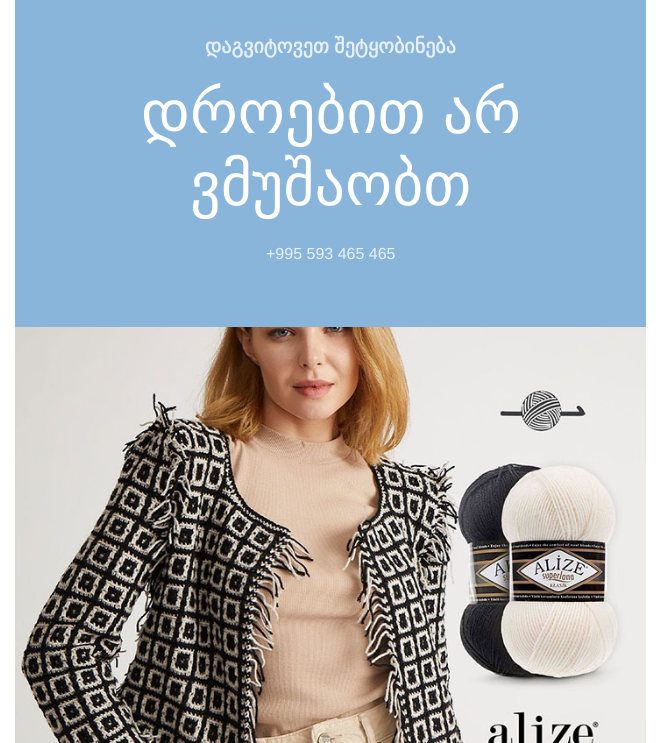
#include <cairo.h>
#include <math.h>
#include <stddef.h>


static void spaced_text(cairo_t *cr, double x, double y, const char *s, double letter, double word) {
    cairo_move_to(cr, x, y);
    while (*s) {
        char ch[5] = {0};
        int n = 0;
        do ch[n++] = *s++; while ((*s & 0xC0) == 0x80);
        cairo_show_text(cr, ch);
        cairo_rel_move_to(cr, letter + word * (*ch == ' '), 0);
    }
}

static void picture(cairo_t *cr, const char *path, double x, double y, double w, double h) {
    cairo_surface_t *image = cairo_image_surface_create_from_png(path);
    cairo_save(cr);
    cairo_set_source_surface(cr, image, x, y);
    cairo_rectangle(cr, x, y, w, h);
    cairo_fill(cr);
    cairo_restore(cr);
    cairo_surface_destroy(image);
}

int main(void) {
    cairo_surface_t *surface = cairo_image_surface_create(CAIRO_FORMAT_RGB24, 661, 743);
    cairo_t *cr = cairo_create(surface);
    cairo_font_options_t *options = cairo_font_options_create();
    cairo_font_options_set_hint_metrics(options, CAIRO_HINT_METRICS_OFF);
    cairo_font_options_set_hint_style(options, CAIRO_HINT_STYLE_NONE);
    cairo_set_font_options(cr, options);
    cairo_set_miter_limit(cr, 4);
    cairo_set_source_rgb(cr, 1, 1, 1);
    cairo_paint(cr);
    cairo_set_source_rgb(cr, 0.537, 0.71, 0.855);
    cairo_rectangle(cr, 15, 0, 631, 327);
    cairo_fill(cr);
    cairo_select_font_face(cr, "DejaVu Sans", CAIRO_FONT_SLANT_NORMAL, CAIRO_FONT_WEIGHT_BOLD);
    cairo_set_font_size(cr, 20);
    cairo_set_source_rgb(cr, 0.906, 0.941, 0.973);
    spaced_text(cr, 205, 53, "დაგვიტოვეთ შეტყობინება", 0, -1);
    cairo_select_font_face(cr, "DejaVu Sans", CAIRO_FONT_SLANT_NORMAL, CAIRO_FONT_WEIGHT_NORMAL);
    cairo_set_font_size(cr, 60);
    cairo_set_source_rgb(cr, 1, 1, 1);
    spaced_text(cr, 141, 133, "დროებით არ", 0, -2);
    cairo_move_to(cr, 190, 205);
    cairo_show_text(cr, "ვმუშაობთ");
    cairo_select_font_face(cr, "Liberation Sans", CAIRO_FONT_SLANT_NORMAL, CAIRO_FONT_WEIGHT_NORMAL);
    cairo_set_font_size(cr, 16);
    cairo_set_source_rgb(cr, 0.906, 0.941, 0.973);
    cairo_move_to(cr, 266, 259);
    cairo_show_text(cr, "+995 593 465 465");
    picture(cr, "img1.png", 15, 327, 631, 416);
    cairo_surface_write_to_png(surface, "page.png");
    cairo_font_options_destroy(options);
    cairo_destroy(cr);
    cairo_surface_destroy(surface);
    return 0;
}
